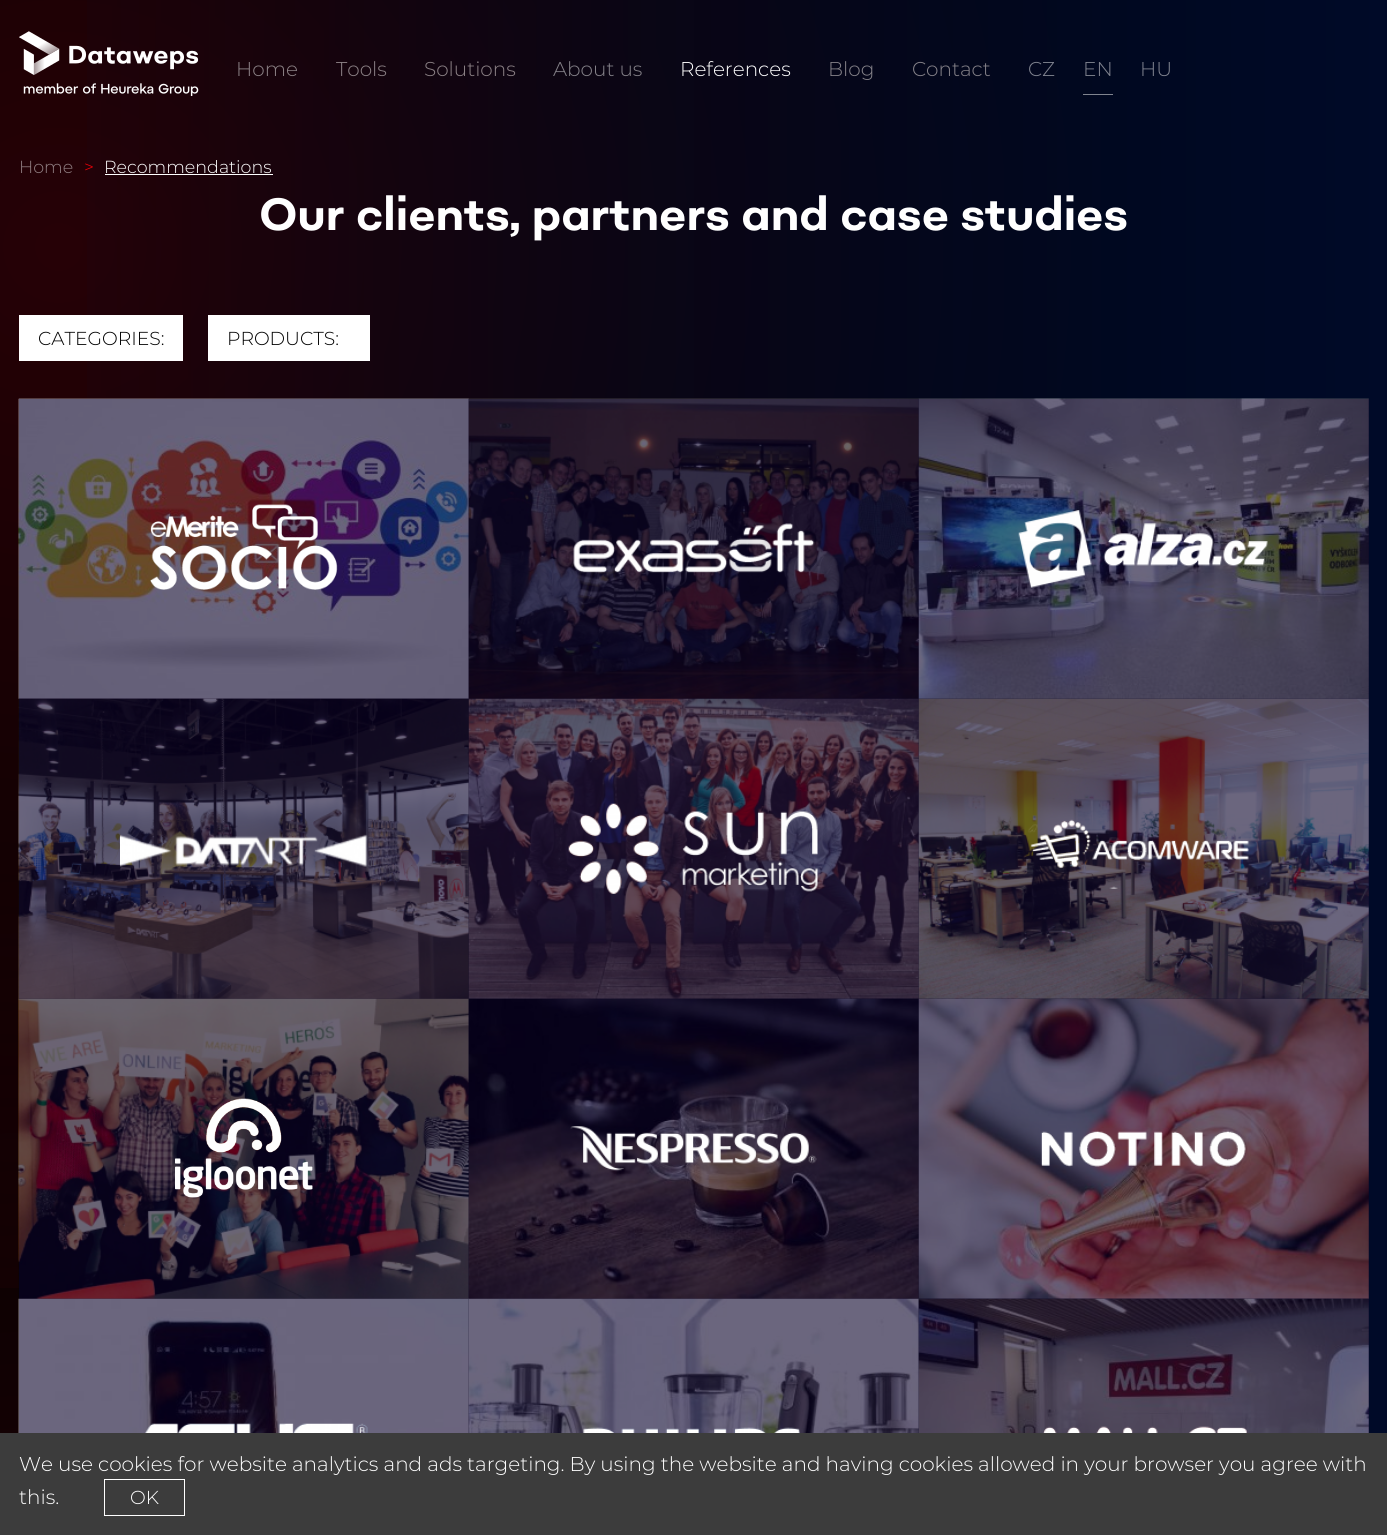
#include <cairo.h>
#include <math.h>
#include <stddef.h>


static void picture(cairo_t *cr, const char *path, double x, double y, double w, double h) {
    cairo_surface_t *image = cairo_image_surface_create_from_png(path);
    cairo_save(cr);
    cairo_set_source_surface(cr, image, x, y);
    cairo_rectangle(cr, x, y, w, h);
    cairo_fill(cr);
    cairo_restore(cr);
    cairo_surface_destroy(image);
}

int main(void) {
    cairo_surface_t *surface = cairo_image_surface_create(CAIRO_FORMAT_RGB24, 1387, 1535);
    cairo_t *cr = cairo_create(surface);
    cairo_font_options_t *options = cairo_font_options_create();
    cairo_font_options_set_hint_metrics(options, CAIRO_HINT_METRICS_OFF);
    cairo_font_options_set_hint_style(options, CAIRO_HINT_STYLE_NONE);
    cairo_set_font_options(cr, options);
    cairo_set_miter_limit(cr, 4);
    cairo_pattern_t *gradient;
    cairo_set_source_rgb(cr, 1, 1, 1);
    cairo_paint(cr);
    gradient = cairo_pattern_create_radial(59, 2052, 0, 59, 2052, 1219);
    cairo_pattern_add_color_stop_rgba(gradient, 0, 0.149, 0.008, 0.024, 1);
    cairo_pattern_add_color_stop_rgba(gradient, 1, 0, 0, 0, 1);
    cairo_set_source(cr, gradient);
    cairo_pattern_destroy(gradient);
    cairo_rectangle(cr, 0, 0, 1380, 1433);
    cairo_fill(cr);
    gradient = cairo_pattern_create_radial(59, 247, 0, 59, 247, 1219);
    cairo_pattern_add_color_stop_rgba(gradient, 0, 1, 0.039, 0.157, 0.15);
    cairo_pattern_add_color_stop_rgba(gradient, 1, 1, 0.039, 0.157, 0);
    cairo_set_source(cr, gradient);
    cairo_pattern_destroy(gradient);
    cairo_rectangle(cr, 0, 0, 1101, 1288);
    cairo_fill(cr);
    gradient = cairo_pattern_create_linear(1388, 1162, 0, 1162);
    cairo_pattern_add_color_stop_rgba(gradient, 0, 0, 0.039, 0.157, 1);
    cairo_pattern_add_color_stop_rgba(gradient, 1, 0, 0.039, 0.157, 0);
    cairo_set_source(cr, gradient);
    cairo_pattern_destroy(gradient);
    cairo_rectangle(cr, 87, 0, 1300, 1433);
    cairo_fill(cr);
    picture(cr, "img1.png", 19, 31, 180, 65);
    cairo_select_font_face(cr, "Montserrat Light", CAIRO_FONT_SLANT_NORMAL, CAIRO_FONT_WEIGHT_NORMAL);
    cairo_set_font_size(cr, 20);
    cairo_set_source_rgb(cr, 0.545, 0.506, 0.522);
    cairo_move_to(cr, 236, 76);
    cairo_show_text(cr, "Home");
    cairo_move_to(cr, 336, 76);
    cairo_show_text(cr, "Tools");
    cairo_move_to(cr, 424, 76);
    cairo_show_text(cr, "Solutions");
    cairo_set_source_rgb(cr, 0.522, 0.51, 0.537);
    cairo_move_to(cr, 553, 76);
    cairo_show_text(cr, "About us");
    cairo_set_source_rgb(cr, 1, 1, 1);
    cairo_move_to(cr, 680, 76);
    cairo_show_text(cr, "References");
    cairo_set_source_rgb(cr, 0.522, 0.51, 0.537);
    cairo_move_to(cr, 828, 76);
    cairo_show_text(cr, "Blog");
    cairo_move_to(cr, 912, 76);
    cairo_show_text(cr, "Contact");
    cairo_set_source_rgb(cr, 0.502, 0.514, 0.561);
    cairo_move_to(cr, 1028, 76);
    cairo_show_text(cr, "CZ");
    cairo_move_to(cr, 1083, 76);
    cairo_show_text(cr, "EN");
    cairo_set_source_rgb(cr, 0.502, 0.518, 0.561);
    cairo_rectangle(cr, 1083, 94, 30, 1);
    cairo_fill(cr);
    cairo_set_source_rgb(cr, 0.502, 0.514, 0.561);
    cairo_move_to(cr, 1140, 76);
    cairo_show_text(cr, "HU");
    cairo_set_font_size(cr, 17.5);
    cairo_set_source_rgb(cr, 0.569, 0.502, 0.514);
    cairo_move_to(cr, 19, 173);
    cairo_show_text(cr, "Home");
    cairo_set_source_rgb(cr, 0.984, 0, 0.024);
    cairo_move_to(cr, 84, 173);
    cairo_show_text(cr, ">");
    cairo_set_source_rgb(cr, 1, 1, 1);
    cairo_move_to(cr, 104, 173);
    cairo_show_text(cr, "Recommendations");
    cairo_rectangle(cr, 105, 174, 168, 1);
    cairo_fill(cr);
    cairo_select_font_face(cr, "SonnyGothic", CAIRO_FONT_SLANT_NORMAL, CAIRO_FONT_WEIGHT_NORMAL);
    cairo_set_font_size(cr, 45);
    cairo_move_to(cr, 259, 230);
    cairo_show_text(cr, "Our clients, partners and case studies");
    cairo_rectangle(cr, 19, 315, 164, 46);
    cairo_fill(cr);
    cairo_select_font_face(cr, "Montserrat Light", CAIRO_FONT_SLANT_NORMAL, CAIRO_FONT_WEIGHT_NORMAL);
    cairo_set_font_size(cr, 18.75);
    cairo_set_source_rgb(cr, 0, 0, 0);
    cairo_move_to(cr, 38, 345);
    cairo_show_text(cr, "CATEGORIES:");
    cairo_set_source_rgb(cr, 1, 1, 1);
    cairo_rectangle(cr, 208, 315, 162, 46);
    cairo_fill(cr);
    cairo_set_source_rgb(cr, 0, 0, 0);
    cairo_move_to(cr, 227, 345);
    cairo_show_text(cr, "PRODUCTS:");
    picture(cr, "img2.png", 18, 398, 451, 301);
    picture(cr, "img4.png", 468, 398, 451, 301);
    picture(cr, "img8.png", 18, 698, 451, 301);
    picture(cr, "img6.png", 918, 398, 451, 301);
    picture(cr, "img10.png", 468, 698, 451, 301);
    cairo_set_source_rgba(cr, 0.039, 0, 0.157, 0.6);
    cairo_rectangle(cr, 19, 399, 450, 300);
    cairo_fill(cr);
    picture(cr, "img3.png", 150, 504, 188, 86);
    picture(cr, "img12.png", 918, 698, 451, 301);
    cairo_rectangle(cr, 469, 399, 450, 300);
    cairo_fill(cr);
    picture(cr, "img5.png", 573, 523, 242, 50);
    cairo_rectangle(cr, 919, 399, 450, 300);
    cairo_fill(cr);
    picture(cr, "img7.png", 1018, 510, 250, 78);
    picture(cr, "img14.png", 18, 998, 451, 301);
    picture(cr, "img16.png", 468, 998, 451, 301);
    cairo_rectangle(cr, 19, 699, 450, 300);
    cairo_fill(cr);
    picture(cr, "img9.png", 120, 834, 248, 33);
    picture(cr, "img18.png", 918, 998, 451, 301);
    cairo_rectangle(cr, 469, 699, 450, 300);
    cairo_fill(cr);
    picture(cr, "img11.png", 568, 803, 250, 91);
    cairo_rectangle(cr, 919, 699, 450, 300);
    cairo_fill(cr);
    picture(cr, "img13.png", 1028, 819, 221, 70);
    picture(cr, "img20.png", 18, 1298, 451, 135);
    picture(cr, "img22.png", 468, 1298, 451, 135);
    cairo_rectangle(cr, 19, 999, 450, 300);
    cairo_fill(cr);
    picture(cr, "img15.png", 175, 1098, 138, 100);
    picture(cr, "img24.png", 918, 1298, 451, 135);
    cairo_rectangle(cr, 469, 999, 450, 300);
    cairo_fill(cr);
    picture(cr, "img17.png", 570, 1126, 247, 45);
    cairo_rectangle(cr, 919, 999, 450, 300);
    cairo_fill(cr);
    picture(cr, "img19.png", 1040, 1130, 206, 37);
    cairo_rectangle(cr, 19, 1299, 450, 134);
    cairo_fill(cr);
    picture(cr, "img21.png", 145, 1423, 223, 10);
    cairo_rectangle(cr, 469, 1299, 450, 134);
    cairo_fill(cr);
    picture(cr, "img23.png", 583, 1427, 217, 6);
    cairo_rectangle(cr, 919, 1299, 450, 134);
    cairo_fill(cr);
    picture(cr, "img25.png", 1043, 1426, 205, 7);
    cairo_set_source_rgb(cr, 0.235, 0.235, 0.235);
    cairo_rectangle(cr, 0, 1433, 1387, 102);
    cairo_fill(cr);
    cairo_set_font_size(cr, 20);
    cairo_set_source_rgb(cr, 1, 1, 1);
    cairo_move_to(cr, 19, 1471);
    cairo_show_text(cr, "We use cookies for website analytics and ads targeting. By using the website and having cookies allowed in your browser you agree with");
    cairo_move_to(cr, 19, 1504);
    cairo_show_text(cr, "this.");
    cairo_rectangle(cr, 104.5, 1479.5, 80, 36);
    cairo_set_line_width(cr, 1);
    cairo_stroke(cr);
    cairo_set_font_size(cr, 18.75);
    cairo_move_to(cr, 130, 1504);
    cairo_show_text(cr, "OK");
    cairo_surface_write_to_png(surface, "page.png");
    cairo_font_options_destroy(options);
    cairo_destroy(cr);
    cairo_surface_destroy(surface);
    return 0;
}
